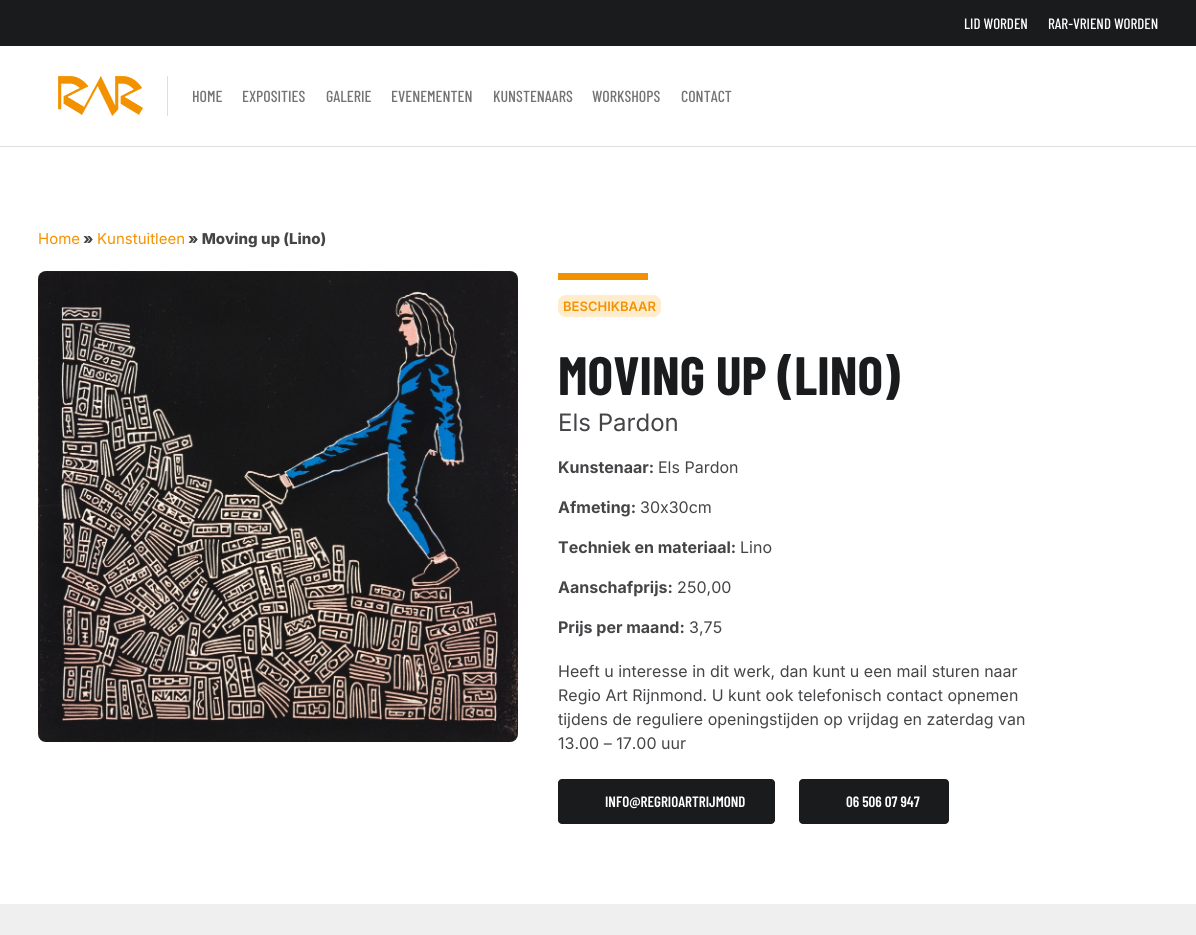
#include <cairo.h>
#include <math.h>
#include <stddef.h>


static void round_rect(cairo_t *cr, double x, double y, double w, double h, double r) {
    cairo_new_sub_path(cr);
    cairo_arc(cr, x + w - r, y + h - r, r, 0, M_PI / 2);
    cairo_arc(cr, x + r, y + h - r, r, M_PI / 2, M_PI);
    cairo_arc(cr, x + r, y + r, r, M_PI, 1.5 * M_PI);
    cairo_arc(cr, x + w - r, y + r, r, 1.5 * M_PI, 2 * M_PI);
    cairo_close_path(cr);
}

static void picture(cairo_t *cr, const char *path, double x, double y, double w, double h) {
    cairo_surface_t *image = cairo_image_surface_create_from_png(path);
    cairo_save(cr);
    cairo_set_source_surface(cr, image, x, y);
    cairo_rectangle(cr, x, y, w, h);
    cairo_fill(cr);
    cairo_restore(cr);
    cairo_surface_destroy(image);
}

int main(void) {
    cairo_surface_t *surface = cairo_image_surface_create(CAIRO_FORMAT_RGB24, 1196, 935);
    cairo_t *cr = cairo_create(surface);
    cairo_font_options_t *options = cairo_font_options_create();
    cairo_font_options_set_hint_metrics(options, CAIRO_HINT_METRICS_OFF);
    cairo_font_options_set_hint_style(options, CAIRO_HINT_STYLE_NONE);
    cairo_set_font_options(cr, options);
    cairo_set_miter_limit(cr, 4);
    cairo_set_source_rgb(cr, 1, 1, 1);
    cairo_paint(cr);
    cairo_set_source_rgb(cr, 0.871, 0.871, 0.871);
    cairo_rectangle(cr, 0, 146, 1196, 1);
    cairo_fill(cr);
    cairo_set_source_rgb(cr, 0.098, 0.106, 0.114);
    cairo_rectangle(cr, 0, 0, 1196, 46);
    cairo_fill(cr);
    cairo_select_font_face(cr, "Barlow Condensed Medium", CAIRO_FONT_SLANT_NORMAL, CAIRO_FONT_WEIGHT_NORMAL);
    cairo_set_font_size(cr, 15);
    cairo_set_source_rgb(cr, 1, 1, 1);
    cairo_move_to(cr, 964, 29);
    cairo_show_text(cr, "LID WORDEN");
    cairo_move_to(cr, 1048, 29);
    cairo_show_text(cr, "RAR-VRIEND WORDEN");
    cairo_set_source_rgb(cr, 0.871, 0.871, 0.871);
    cairo_rectangle(cr, 167, 76, 1, 40);
    cairo_fill(cr);
    picture(cr, "img1.png", 58, 76, 85, 40);
    cairo_set_font_size(cr, 16);
    cairo_set_source_rgb(cr, 0.455, 0.455, 0.463);
    cairo_move_to(cr, 192, 102);
    cairo_show_text(cr, "HOME");
    cairo_move_to(cr, 242, 102);
    cairo_show_text(cr, "EXPOSITIES");
    cairo_move_to(cr, 326, 102);
    cairo_show_text(cr, "GALERIE");
    cairo_move_to(cr, 391, 102);
    cairo_show_text(cr, "EVENEMENTEN");
    cairo_move_to(cr, 493, 102);
    cairo_show_text(cr, "KUNSTENAARS");
    cairo_move_to(cr, 592, 102);
    cairo_show_text(cr, "WORKSHOPS");
    cairo_move_to(cr, 681, 102);
    cairo_show_text(cr, "CONTACT");
    cairo_select_font_face(cr, "Inter", CAIRO_FONT_SLANT_NORMAL, CAIRO_FONT_WEIGHT_NORMAL);
    cairo_set_font_size(cr, 15);
    cairo_set_source_rgb(cr, 0.953, 0.573, 0);
    cairo_move_to(cr, 38, 244);
    cairo_show_text(cr, "Home");
    cairo_select_font_face(cr, "Inter ExtraBold", CAIRO_FONT_SLANT_NORMAL, CAIRO_FONT_WEIGHT_NORMAL);
    cairo_set_source_rgb(cr, 0.271, 0.271, 0.282);
    cairo_move_to(cr, 83, 244);
    cairo_show_text(cr, "»");
    cairo_select_font_face(cr, "Inter", CAIRO_FONT_SLANT_NORMAL, CAIRO_FONT_WEIGHT_NORMAL);
    cairo_set_source_rgb(cr, 0.953, 0.573, 0);
    cairo_move_to(cr, 97, 244);
    cairo_show_text(cr, "Kunstuitleen");
    cairo_select_font_face(cr, "Inter ExtraBold", CAIRO_FONT_SLANT_NORMAL, CAIRO_FONT_WEIGHT_NORMAL);
    cairo_set_source_rgb(cr, 0.271, 0.271, 0.282);
    cairo_move_to(cr, 188, 244);
    cairo_show_text(cr, "» Moving up (Lino)");
    picture(cr, "img2.png", 38, 271, 480, 471);
    cairo_set_source_rgb(cr, 0.953, 0.573, 0);
    cairo_rectangle(cr, 558, 273, 90, 7);
    cairo_fill(cr);
    cairo_set_source_rgb(cr, 1, 0.922, 0.8);
    round_rect(cr, 558, 295, 103, 22, 8);
    cairo_fill(cr);
    cairo_select_font_face(cr, "Inter SemiBold", CAIRO_FONT_SLANT_NORMAL, CAIRO_FONT_WEIGHT_NORMAL);
    cairo_set_font_size(cr, 13);
    cairo_set_source_rgb(cr, 0.953, 0.573, 0);
    cairo_move_to(cr, 563, 311);
    cairo_show_text(cr, "BESCHIKBAAR");
    cairo_select_font_face(cr, "Barlow Condensed", CAIRO_FONT_SLANT_NORMAL, CAIRO_FONT_WEIGHT_BOLD);
    cairo_set_font_size(cr, 54);
    cairo_set_source_rgb(cr, 0.098, 0.106, 0.114);
    cairo_move_to(cr, 558, 395);
    cairo_show_text(cr, "MOVING UP (LINO)");
    cairo_select_font_face(cr, "Inter", CAIRO_FONT_SLANT_NORMAL, CAIRO_FONT_WEIGHT_NORMAL);
    cairo_set_font_size(cr, 24);
    cairo_set_source_rgb(cr, 0.271, 0.271, 0.282);
    cairo_move_to(cr, 558, 431);
    cairo_show_text(cr, "Els Pardon");
    cairo_select_font_face(cr, "Inter", CAIRO_FONT_SLANT_NORMAL, CAIRO_FONT_WEIGHT_BOLD);
    cairo_set_font_size(cr, 16);
    cairo_move_to(cr, 558, 473);
    cairo_show_text(cr, "Kunstenaar:");
    cairo_select_font_face(cr, "Inter", CAIRO_FONT_SLANT_NORMAL, CAIRO_FONT_WEIGHT_NORMAL);
    cairo_move_to(cr, 658, 473);
    cairo_show_text(cr, "Els Pardon");
    cairo_select_font_face(cr, "Inter", CAIRO_FONT_SLANT_NORMAL, CAIRO_FONT_WEIGHT_BOLD);
    cairo_move_to(cr, 558, 513);
    cairo_show_text(cr, "Afmeting:");
    cairo_select_font_face(cr, "Inter", CAIRO_FONT_SLANT_NORMAL, CAIRO_FONT_WEIGHT_NORMAL);
    cairo_move_to(cr, 640, 513);
    cairo_show_text(cr, "30x30cm");
    cairo_select_font_face(cr, "Inter", CAIRO_FONT_SLANT_NORMAL, CAIRO_FONT_WEIGHT_BOLD);
    cairo_move_to(cr, 558, 553);
    cairo_show_text(cr, "Techniek en materiaal:");
    cairo_select_font_face(cr, "Inter", CAIRO_FONT_SLANT_NORMAL, CAIRO_FONT_WEIGHT_NORMAL);
    cairo_move_to(cr, 740, 553);
    cairo_show_text(cr, "Lino");
    cairo_select_font_face(cr, "Inter", CAIRO_FONT_SLANT_NORMAL, CAIRO_FONT_WEIGHT_BOLD);
    cairo_move_to(cr, 558, 593);
    cairo_show_text(cr, "Aanschafprijs:");
    cairo_select_font_face(cr, "Inter", CAIRO_FONT_SLANT_NORMAL, CAIRO_FONT_WEIGHT_NORMAL);
    cairo_move_to(cr, 677, 593);
    cairo_show_text(cr, "250,00");
    cairo_select_font_face(cr, "Inter", CAIRO_FONT_SLANT_NORMAL, CAIRO_FONT_WEIGHT_BOLD);
    cairo_move_to(cr, 558, 633);
    cairo_show_text(cr, "Prijs per maand:");
    cairo_select_font_face(cr, "Inter", CAIRO_FONT_SLANT_NORMAL, CAIRO_FONT_WEIGHT_NORMAL);
    cairo_move_to(cr, 689, 633);
    cairo_show_text(cr, "3,75");
    cairo_move_to(cr, 558, 677);
    cairo_show_text(cr, "Heeft u interesse in dit werk, dan kunt u een mail sturen naar");
    cairo_move_to(cr, 558, 701);
    cairo_show_text(cr, "Regio Art Rijnmond. U kunt ook telefonisch contact opnemen");
    cairo_move_to(cr, 558, 725);
    cairo_show_text(cr, "tijdens de reguliere openingstijden op vrijdag en zaterdag van");
    cairo_move_to(cr, 558, 749);
    cairo_show_text(cr, "13.00 – 17.00 uur");
    cairo_set_source_rgb(cr, 0.098, 0.106, 0.114);
    round_rect(cr, 558, 779, 217, 45, 4);
    cairo_fill(cr);
    cairo_select_font_face(cr, "Barlow Condensed SemiBold", CAIRO_FONT_SLANT_NORMAL, CAIRO_FONT_WEIGHT_NORMAL);
    cairo_set_font_size(cr, 15);
    cairo_set_source_rgb(cr, 1, 1, 1);
    cairo_move_to(cr, 605, 807);
    cairo_show_text(cr, "INFO@REGRIOARTRIJMOND");
    cairo_set_source_rgb(cr, 0.098, 0.106, 0.114);
    round_rect(cr, 799, 779, 150, 45, 4);
    cairo_fill(cr);
    cairo_set_source_rgb(cr, 1, 1, 1);
    cairo_move_to(cr, 846, 807);
    cairo_show_text(cr, "06 506 07 947");
    cairo_set_source_rgb(cr, 0.937, 0.937, 0.937);
    cairo_rectangle(cr, 0, 904, 1196, 31);
    cairo_fill(cr);
    cairo_surface_write_to_png(surface, "page.png");
    cairo_font_options_destroy(options);
    cairo_destroy(cr);
    cairo_surface_destroy(surface);
    return 0;
}
